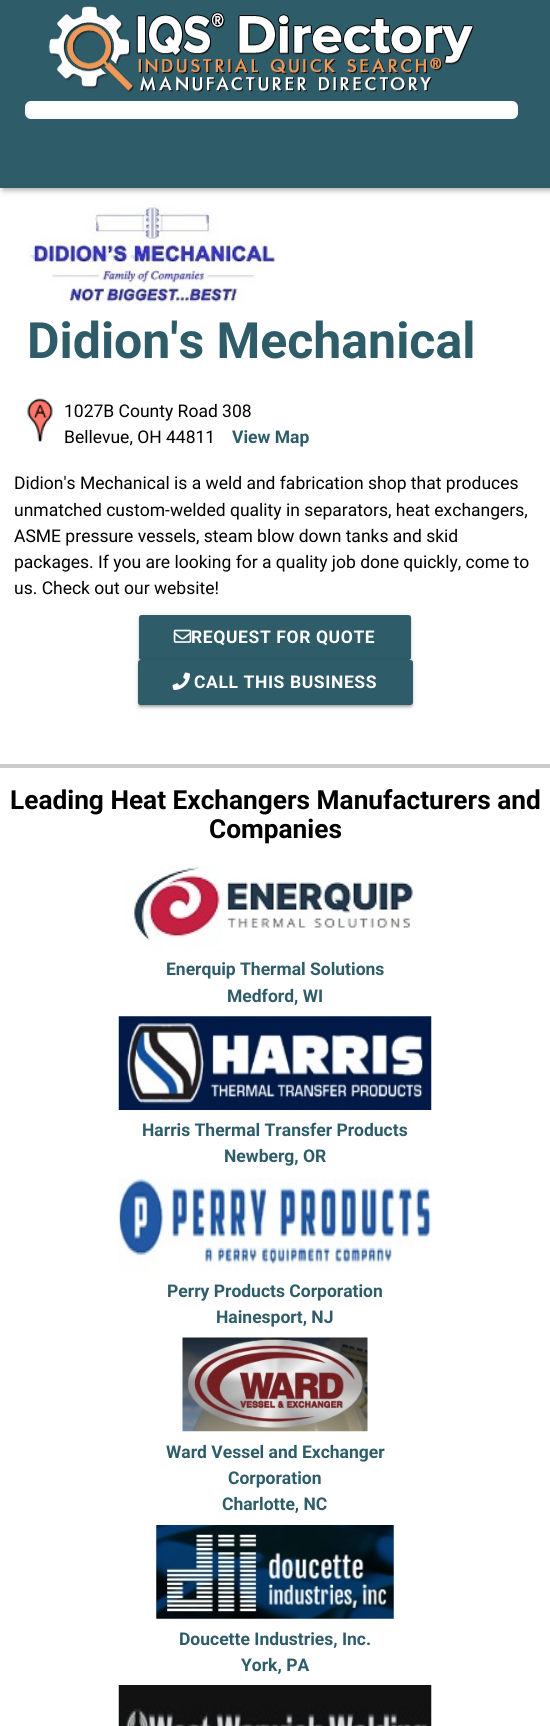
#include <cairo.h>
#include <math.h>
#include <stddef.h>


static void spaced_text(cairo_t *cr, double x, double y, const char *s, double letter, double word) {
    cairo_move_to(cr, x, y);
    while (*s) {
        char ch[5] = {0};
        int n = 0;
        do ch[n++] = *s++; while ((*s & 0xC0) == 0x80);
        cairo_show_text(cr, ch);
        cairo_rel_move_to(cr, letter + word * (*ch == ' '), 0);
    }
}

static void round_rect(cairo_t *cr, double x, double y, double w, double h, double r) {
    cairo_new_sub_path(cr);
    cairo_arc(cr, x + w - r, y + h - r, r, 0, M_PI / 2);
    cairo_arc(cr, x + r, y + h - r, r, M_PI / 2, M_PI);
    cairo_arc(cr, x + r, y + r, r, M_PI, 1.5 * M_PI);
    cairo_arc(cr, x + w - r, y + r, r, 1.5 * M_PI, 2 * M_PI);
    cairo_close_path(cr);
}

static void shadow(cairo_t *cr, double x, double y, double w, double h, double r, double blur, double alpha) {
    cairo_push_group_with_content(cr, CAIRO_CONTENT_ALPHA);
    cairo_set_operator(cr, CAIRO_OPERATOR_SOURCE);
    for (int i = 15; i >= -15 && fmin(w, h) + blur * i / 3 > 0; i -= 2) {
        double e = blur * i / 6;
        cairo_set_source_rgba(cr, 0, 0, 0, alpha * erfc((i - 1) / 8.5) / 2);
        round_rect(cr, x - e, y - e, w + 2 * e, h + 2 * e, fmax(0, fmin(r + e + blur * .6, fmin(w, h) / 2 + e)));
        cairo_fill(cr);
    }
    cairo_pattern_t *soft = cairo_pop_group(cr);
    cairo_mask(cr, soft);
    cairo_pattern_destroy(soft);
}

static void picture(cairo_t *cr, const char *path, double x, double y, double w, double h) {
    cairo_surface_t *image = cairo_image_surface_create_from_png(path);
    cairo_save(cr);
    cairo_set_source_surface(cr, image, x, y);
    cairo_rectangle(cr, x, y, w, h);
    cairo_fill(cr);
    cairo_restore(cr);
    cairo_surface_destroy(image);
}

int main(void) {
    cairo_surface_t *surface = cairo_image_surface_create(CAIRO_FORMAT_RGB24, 550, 1726);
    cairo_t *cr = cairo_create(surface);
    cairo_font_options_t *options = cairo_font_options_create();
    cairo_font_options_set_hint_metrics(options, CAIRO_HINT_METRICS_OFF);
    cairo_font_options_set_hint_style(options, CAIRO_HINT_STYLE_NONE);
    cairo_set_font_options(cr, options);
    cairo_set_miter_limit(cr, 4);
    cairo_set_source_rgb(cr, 1, 1, 1);
    cairo_paint(cr);
    cairo_set_source_rgb(cr, 0.196, 0.196, 0.196);
    shadow(cr, 3, 3, 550, 187, 0, 3, 0.43);
    cairo_set_source_rgb(cr, 0.18, 0.361, 0.412);
    cairo_rectangle(cr, 0, 0, 550, 188);
    cairo_fill(cr);
    picture(cr, "img1.png", 49, 6, 425, 87);
    cairo_set_source_rgb(cr, 1, 1, 1);
    round_rect(cr, 25, 101, 493, 18, 6);
    cairo_fill(cr);
    picture(cr, "img2.png", 27, 205, 251, 100);
    cairo_select_font_face(cr, "Roboto", CAIRO_FONT_SLANT_NORMAL, CAIRO_FONT_WEIGHT_BOLD);
    cairo_set_font_size(cr, 50);
    cairo_set_source_rgb(cr, 0.18, 0.361, 0.412);
    cairo_move_to(cr, 27, 358);
    cairo_show_text(cr, "Didion's Mechanical");
    picture(cr, "img3.png", 27, 398, 26, 44);
    cairo_select_font_face(cr, "Roboto", CAIRO_FONT_SLANT_NORMAL, CAIRO_FONT_WEIGHT_NORMAL);
    cairo_set_font_size(cr, 17.5);
    cairo_set_source_rgb(cr, 0, 0, 0);
    cairo_move_to(cr, 64, 417);
    cairo_show_text(cr, "1027B County Road 308");
    cairo_move_to(cr, 64, 443);
    cairo_show_text(cr, "Bellevue, OH 44811");
    cairo_select_font_face(cr, "Roboto", CAIRO_FONT_SLANT_NORMAL, CAIRO_FONT_WEIGHT_BOLD);
    cairo_set_source_rgb(cr, 0.18, 0.361, 0.412);
    cairo_move_to(cr, 232, 443);
    cairo_show_text(cr, "View Map");
    cairo_select_font_face(cr, "Roboto", CAIRO_FONT_SLANT_NORMAL, CAIRO_FONT_WEIGHT_NORMAL);
    cairo_set_source_rgb(cr, 0, 0, 0);
    cairo_move_to(cr, 14, 489);
    cairo_show_text(cr, "Didion's Mechanical is a weld and fabrication shop that produces");
    cairo_move_to(cr, 14, 516);
    cairo_show_text(cr, "unmatched custom-welded quality in separators, heat exchangers,");
    cairo_move_to(cr, 14, 542);
    cairo_show_text(cr, "ASME pressure vessels, steam blow down tanks and skid");
    cairo_move_to(cr, 14, 568);
    cairo_show_text(cr, "packages. If you are looking for a quality job done quickly, come to");
    cairo_move_to(cr, 14, 594);
    cairo_show_text(cr, "us. Check out our website!");
    cairo_set_source_rgb(cr, 0, 0, 0);
    shadow(cr, 139, 616, 272, 45, 2.5, 3, 0.12);
    shadow(cr, 139, 618, 272, 45, 2.5, 1, 0.14);
    cairo_set_source_rgb(cr, 0.18, 0.361, 0.412);
    round_rect(cr, 139, 615, 272, 45, 2.5);
    cairo_fill(cr);
    picture(cr, "img4.png", 173, 629, 19, 14);
    cairo_select_font_face(cr, "Roboto", CAIRO_FONT_SLANT_NORMAL, CAIRO_FONT_WEIGHT_BOLD);
    cairo_set_source_rgb(cr, 1, 1, 1);
    spaced_text(cr, 191, 643, "REQUEST FOR QUOTE", 0.6, 0);
    cairo_set_source_rgb(cr, 0, 0, 0);
    shadow(cr, 140, 666, 270, 40, 0, 0.5, 0.2);
    shadow(cr, 138, 661, 275, 45, 2.5, 3, 0.12);
    shadow(cr, 138, 663, 275, 45, 2.5, 1, 0.14);
    cairo_set_source_rgb(cr, 0.18, 0.361, 0.412);
    round_rect(cr, 138, 660, 275, 45, 2.5);
    cairo_fill(cr);
    picture(cr, "img5.png", 172, 672, 18, 18);
    cairo_set_source_rgb(cr, 1, 1, 1);
    spaced_text(cr, 194, 688, "CALL THIS BUSINESS", 0.6, 0);
    cairo_set_source_rgb(cr, 0.8, 0.8, 0.8);
    cairo_rectangle(cr, 0, 764, 550, 4);
    cairo_fill(cr);
    cairo_set_font_size(cr, 26.25);
    cairo_set_source_rgb(cr, 0, 0, 0);
    cairo_move_to(cr, 10, 809);
    cairo_show_text(cr, "Leading Heat Exchangers Manufacturers and");
    cairo_move_to(cr, 209, 838);
    cairo_show_text(cr, "Companies");
    picture(cr, "img6.png", 124, 865, 290, 84);
    cairo_set_font_size(cr, 17.5);
    cairo_set_source_rgb(cr, 0.18, 0.361, 0.412);
    cairo_move_to(cr, 166, 975);
    cairo_show_text(cr, "Enerquip Thermal Solutions");
    cairo_move_to(cr, 227, 1002);
    cairo_show_text(cr, "Medford, WI");
    picture(cr, "img7.png", 118, 1016, 314, 94);
    cairo_move_to(cr, 142, 1136);
    cairo_show_text(cr, "Harris Thermal Transfer Products");
    cairo_move_to(cr, 224, 1162);
    cairo_show_text(cr, "Newberg, OR");
    picture(cr, "img8.png", 118, 1177, 313, 94);
    cairo_move_to(cr, 167, 1297);
    cairo_show_text(cr, "Perry Products Corporation");
    cairo_move_to(cr, 216, 1323);
    cairo_show_text(cr, "Hainesport, NJ");
    picture(cr, "img9.png", 182, 1337, 186, 95);
    cairo_move_to(cr, 166, 1458);
    cairo_show_text(cr, "Ward Vessel and Exchanger");
    cairo_move_to(cr, 228, 1484);
    cairo_show_text(cr, "Corporation");
    cairo_move_to(cr, 222, 1510);
    cairo_show_text(cr, "Charlotte, NC");
    picture(cr, "img10.png", 156, 1525, 238, 94);
    cairo_move_to(cr, 179, 1645);
    cairo_show_text(cr, "Doucette Industries, Inc.");
    cairo_move_to(cr, 241, 1671);
    cairo_show_text(cr, "York, PA");
    picture(cr, "img11.png", 118, 1685, 314, 41);
    cairo_surface_write_to_png(surface, "page.png");
    cairo_font_options_destroy(options);
    cairo_destroy(cr);
    cairo_surface_destroy(surface);
    return 0;
}
